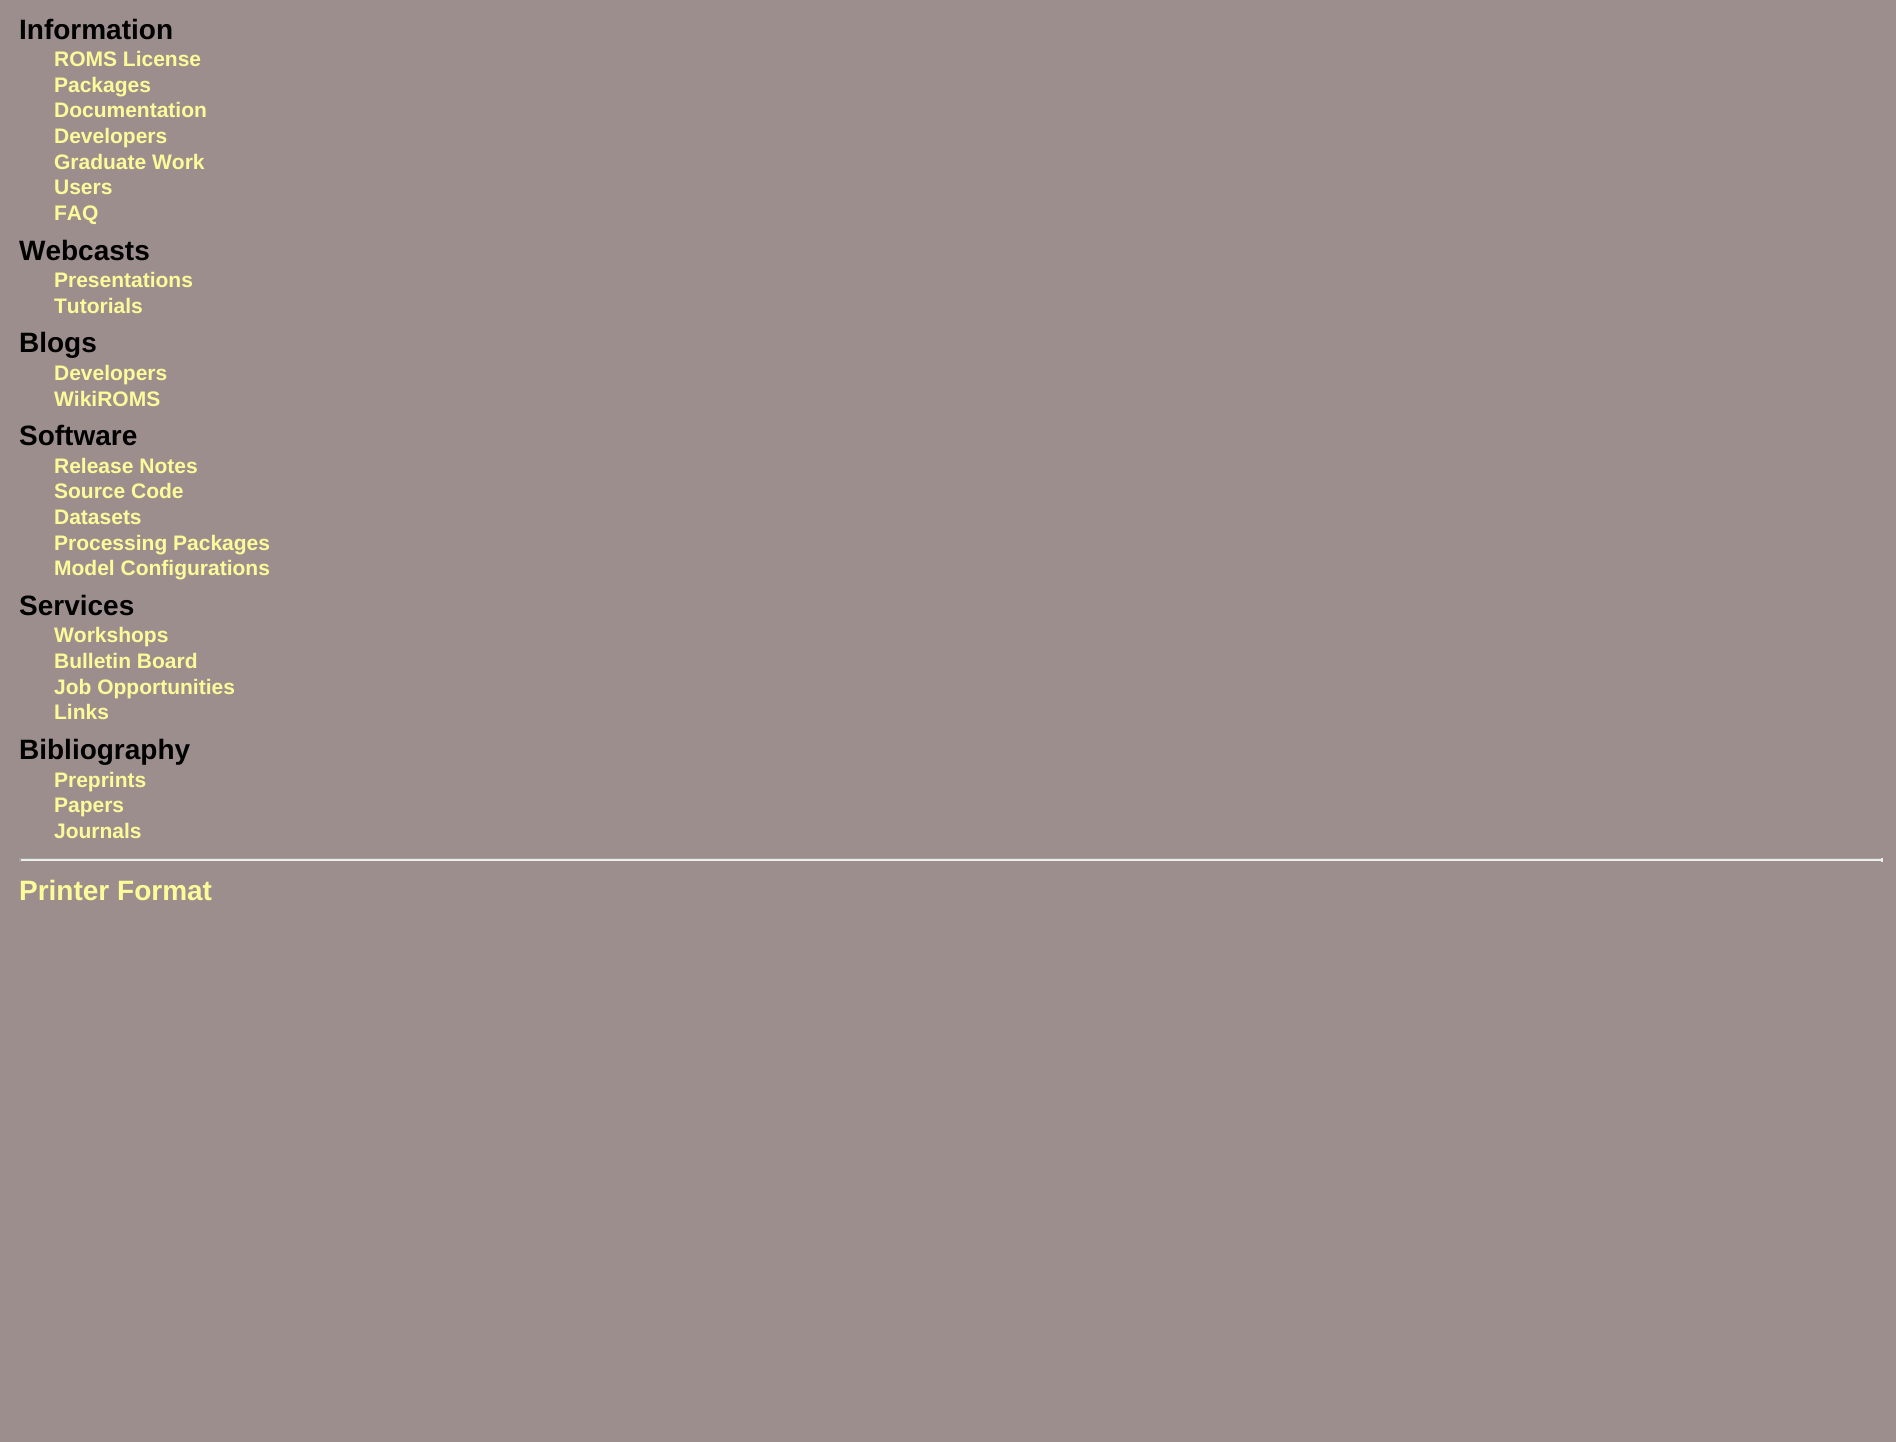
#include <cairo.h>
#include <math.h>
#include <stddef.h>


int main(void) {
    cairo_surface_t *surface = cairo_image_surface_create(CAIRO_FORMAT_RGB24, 1896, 1442);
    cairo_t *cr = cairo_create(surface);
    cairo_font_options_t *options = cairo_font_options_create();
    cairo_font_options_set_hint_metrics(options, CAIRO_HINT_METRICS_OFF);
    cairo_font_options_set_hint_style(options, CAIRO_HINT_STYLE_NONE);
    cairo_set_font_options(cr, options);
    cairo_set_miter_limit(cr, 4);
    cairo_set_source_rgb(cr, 0.616, 0.557, 0.557);
    cairo_paint(cr);
    cairo_select_font_face(cr, "Liberation Sans", CAIRO_FONT_SLANT_NORMAL, CAIRO_FONT_WEIGHT_BOLD);
    cairo_set_font_size(cr, 28);
    cairo_set_source_rgb(cr, 0, 0, 0);
    cairo_move_to(cr, 19, 39);
    cairo_show_text(cr, "Information");
    cairo_set_font_size(cr, 21);
    cairo_set_source_rgb(cr, 0.984, 0.984, 0.6);
    cairo_move_to(cr, 54, 66);
    cairo_show_text(cr, "ROMS License");
    cairo_move_to(cr, 54, 92);
    cairo_show_text(cr, "Packages");
    cairo_move_to(cr, 54, 117);
    cairo_show_text(cr, "Documentation");
    cairo_move_to(cr, 54, 143);
    cairo_show_text(cr, "Developers");
    cairo_move_to(cr, 54, 169);
    cairo_show_text(cr, "Graduate Work");
    cairo_move_to(cr, 54, 194);
    cairo_show_text(cr, "Users");
    cairo_move_to(cr, 54, 220);
    cairo_show_text(cr, "FAQ");
    cairo_set_font_size(cr, 28);
    cairo_set_source_rgb(cr, 0, 0, 0);
    cairo_move_to(cr, 19, 260);
    cairo_show_text(cr, "Webcasts");
    cairo_set_font_size(cr, 21);
    cairo_set_source_rgb(cr, 0.984, 0.984, 0.6);
    cairo_move_to(cr, 54, 287);
    cairo_show_text(cr, "Presentations");
    cairo_move_to(cr, 54, 313);
    cairo_show_text(cr, "Tutorials");
    cairo_set_font_size(cr, 28);
    cairo_set_source_rgb(cr, 0, 0, 0);
    cairo_move_to(cr, 19, 352);
    cairo_show_text(cr, "Blogs");
    cairo_set_font_size(cr, 21);
    cairo_set_source_rgb(cr, 0.984, 0.984, 0.6);
    cairo_move_to(cr, 54, 380);
    cairo_show_text(cr, "Developers");
    cairo_move_to(cr, 54, 406);
    cairo_show_text(cr, "WikiROMS");
    cairo_set_font_size(cr, 28);
    cairo_set_source_rgb(cr, 0, 0, 0);
    cairo_move_to(cr, 19, 445);
    cairo_show_text(cr, "Software");
    cairo_set_font_size(cr, 21);
    cairo_set_source_rgb(cr, 0.984, 0.984, 0.6);
    cairo_move_to(cr, 54, 473);
    cairo_show_text(cr, "Release Notes");
    cairo_move_to(cr, 54, 498);
    cairo_show_text(cr, "Source Code");
    cairo_move_to(cr, 54, 524);
    cairo_show_text(cr, "Datasets");
    cairo_move_to(cr, 54, 550);
    cairo_show_text(cr, "Processing Packages");
    cairo_move_to(cr, 54, 575);
    cairo_show_text(cr, "Model Configurations");
    cairo_set_font_size(cr, 28);
    cairo_set_source_rgb(cr, 0, 0, 0);
    cairo_move_to(cr, 19, 615);
    cairo_show_text(cr, "Services");
    cairo_set_font_size(cr, 21);
    cairo_set_source_rgb(cr, 0.984, 0.984, 0.6);
    cairo_move_to(cr, 54, 642);
    cairo_show_text(cr, "Workshops");
    cairo_move_to(cr, 54, 668);
    cairo_show_text(cr, "Bulletin Board");
    cairo_move_to(cr, 54, 694);
    cairo_show_text(cr, "Job Opportunities");
    cairo_move_to(cr, 54, 719);
    cairo_show_text(cr, "Links");
    cairo_set_font_size(cr, 28);
    cairo_set_source_rgb(cr, 0, 0, 0);
    cairo_move_to(cr, 19, 759);
    cairo_show_text(cr, "Bibliography");
    cairo_set_font_size(cr, 21);
    cairo_set_source_rgb(cr, 0.984, 0.984, 0.6);
    cairo_move_to(cr, 54, 787);
    cairo_show_text(cr, "Preprints");
    cairo_move_to(cr, 54, 812);
    cairo_show_text(cr, "Papers");
    cairo_move_to(cr, 54, 838);
    cairo_show_text(cr, "Journals");
    cairo_set_source_rgb(cr, 0.624, 0.624, 0.624);
    cairo_rectangle(cr, 19, 858, 1864, 1);
    cairo_fill(cr);
    cairo_set_source_rgb(cr, 0.933, 0.933, 0.933);
    cairo_rectangle(cr, 1881, 858, 2, 4);
    cairo_fill(cr);
    cairo_rectangle(cr, 19, 859, 1864, 2);
    cairo_fill(cr);
    cairo_set_source_rgb(cr, 0.624, 0.624, 0.624);
    cairo_rectangle(cr, 19, 858, 2, 4);
    cairo_fill(cr);
    cairo_set_font_size(cr, 28);
    cairo_set_source_rgb(cr, 0.984, 0.984, 0.6);
    cairo_move_to(cr, 19, 900);
    cairo_show_text(cr, "Printer Format");
    cairo_surface_write_to_png(surface, "page.png");
    cairo_font_options_destroy(options);
    cairo_destroy(cr);
    cairo_surface_destroy(surface);
    return 0;
}
